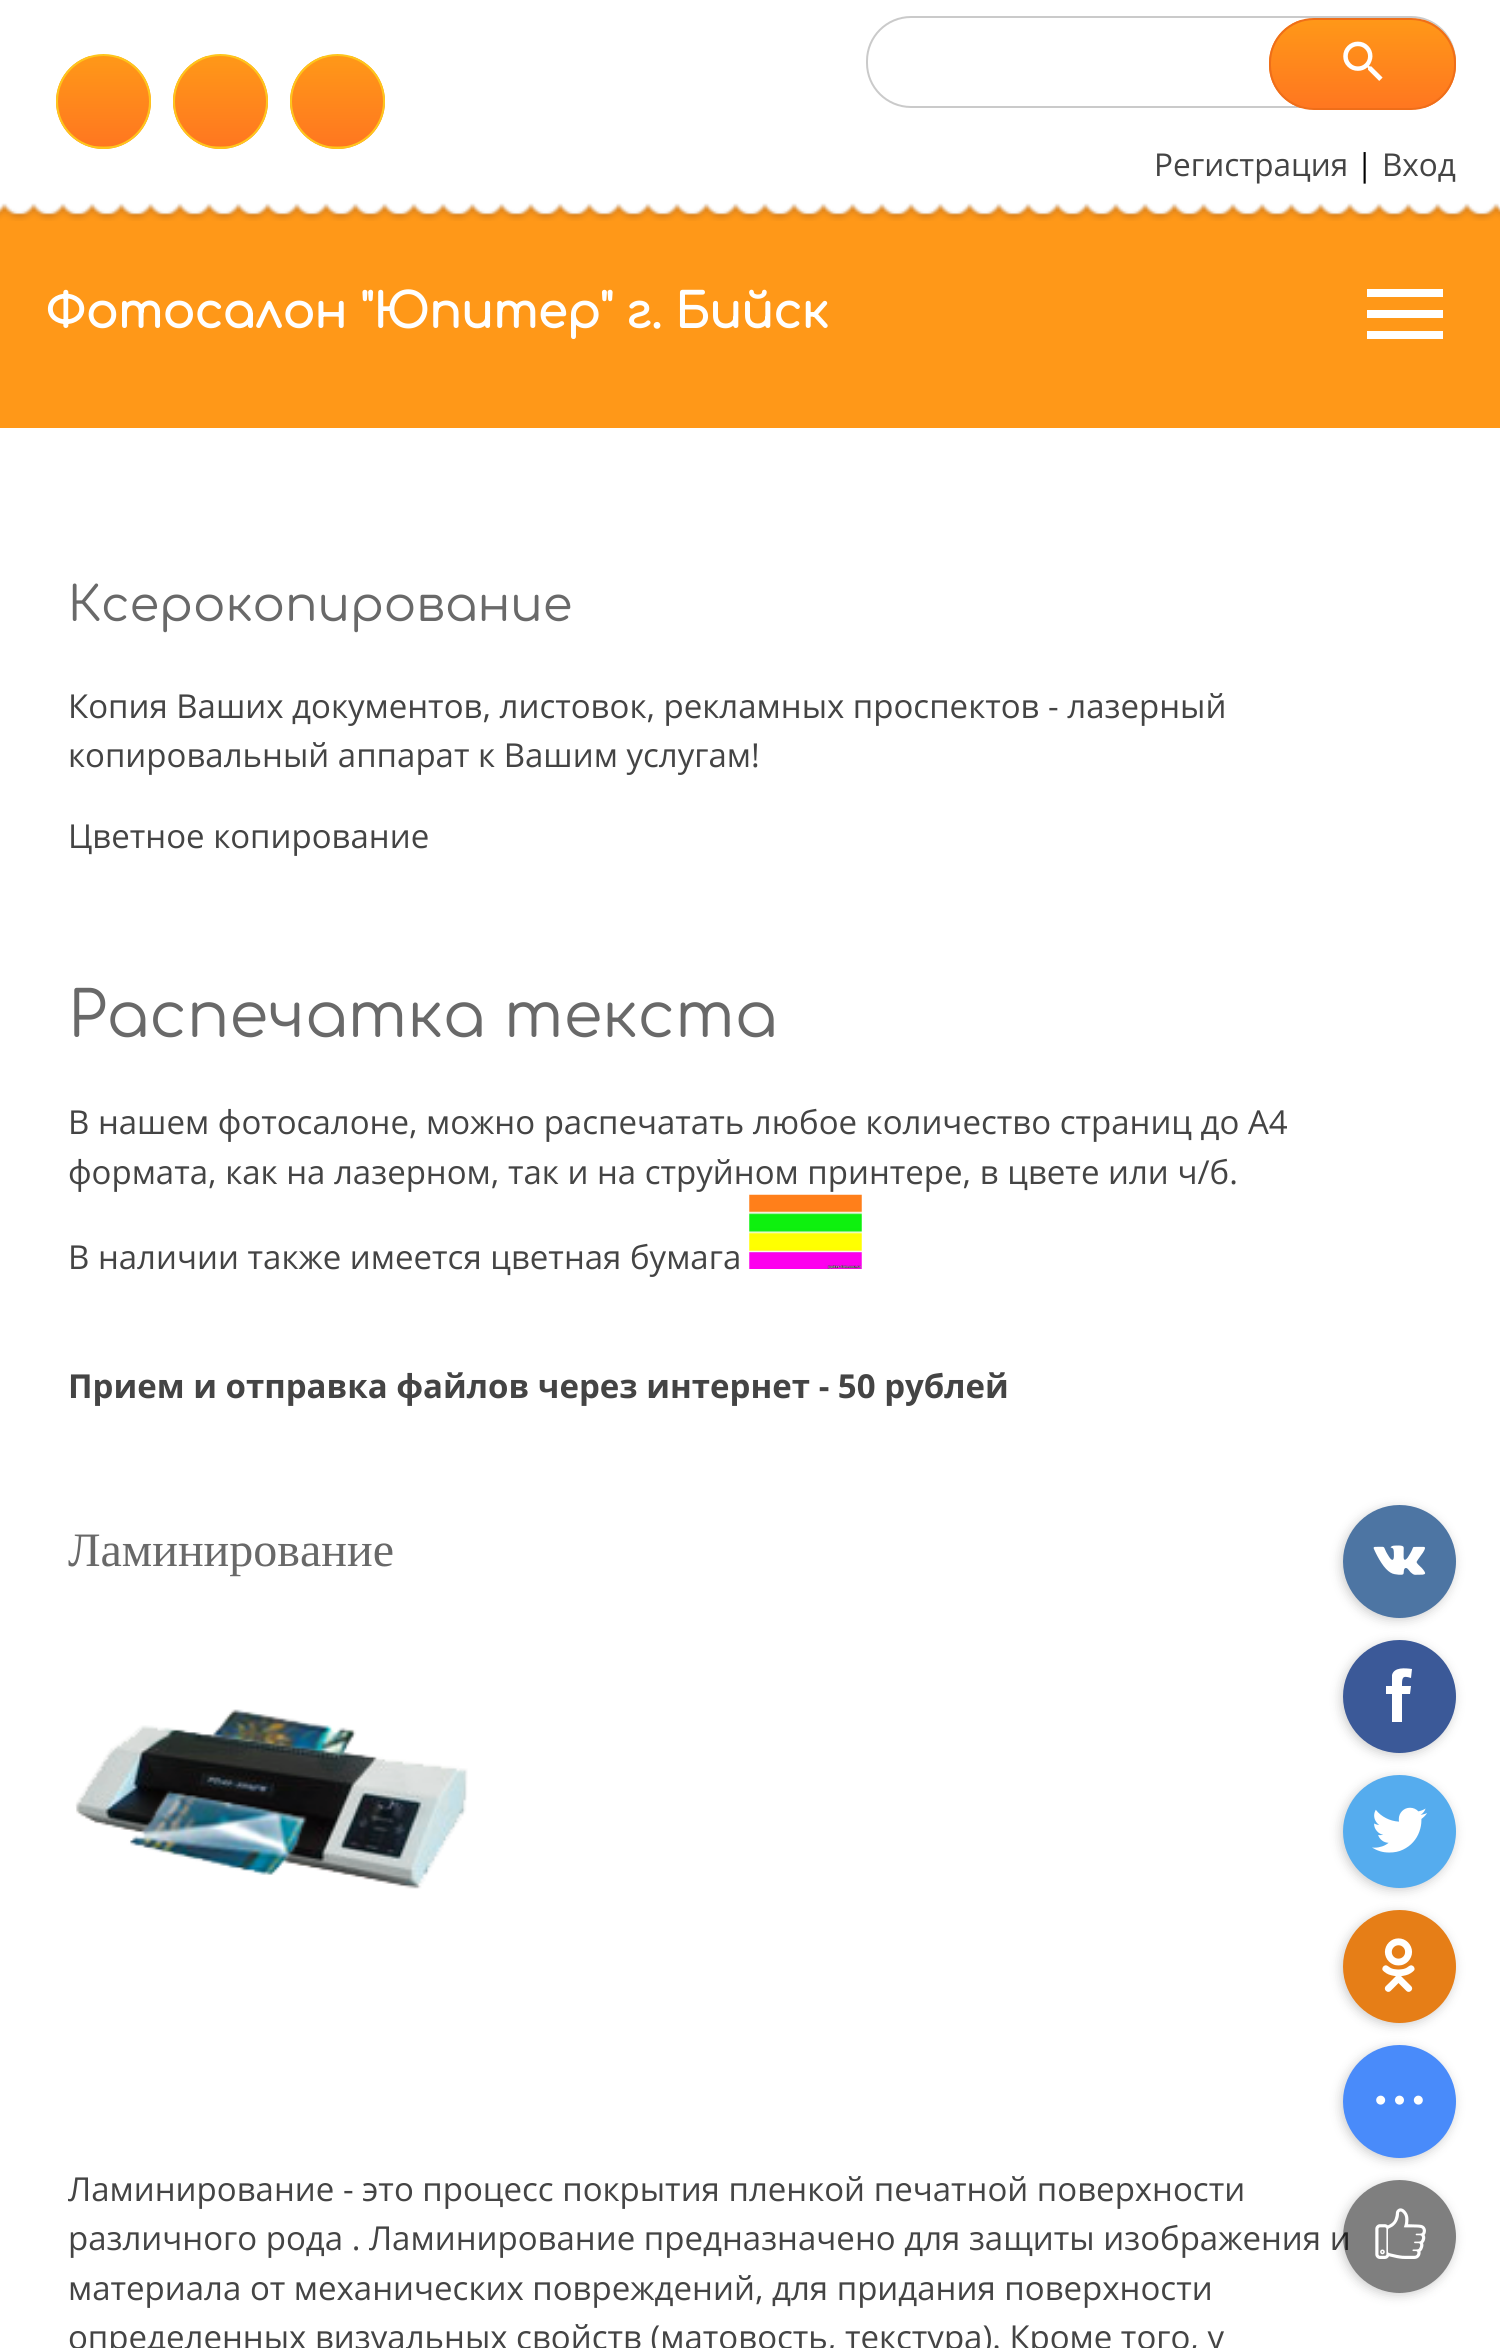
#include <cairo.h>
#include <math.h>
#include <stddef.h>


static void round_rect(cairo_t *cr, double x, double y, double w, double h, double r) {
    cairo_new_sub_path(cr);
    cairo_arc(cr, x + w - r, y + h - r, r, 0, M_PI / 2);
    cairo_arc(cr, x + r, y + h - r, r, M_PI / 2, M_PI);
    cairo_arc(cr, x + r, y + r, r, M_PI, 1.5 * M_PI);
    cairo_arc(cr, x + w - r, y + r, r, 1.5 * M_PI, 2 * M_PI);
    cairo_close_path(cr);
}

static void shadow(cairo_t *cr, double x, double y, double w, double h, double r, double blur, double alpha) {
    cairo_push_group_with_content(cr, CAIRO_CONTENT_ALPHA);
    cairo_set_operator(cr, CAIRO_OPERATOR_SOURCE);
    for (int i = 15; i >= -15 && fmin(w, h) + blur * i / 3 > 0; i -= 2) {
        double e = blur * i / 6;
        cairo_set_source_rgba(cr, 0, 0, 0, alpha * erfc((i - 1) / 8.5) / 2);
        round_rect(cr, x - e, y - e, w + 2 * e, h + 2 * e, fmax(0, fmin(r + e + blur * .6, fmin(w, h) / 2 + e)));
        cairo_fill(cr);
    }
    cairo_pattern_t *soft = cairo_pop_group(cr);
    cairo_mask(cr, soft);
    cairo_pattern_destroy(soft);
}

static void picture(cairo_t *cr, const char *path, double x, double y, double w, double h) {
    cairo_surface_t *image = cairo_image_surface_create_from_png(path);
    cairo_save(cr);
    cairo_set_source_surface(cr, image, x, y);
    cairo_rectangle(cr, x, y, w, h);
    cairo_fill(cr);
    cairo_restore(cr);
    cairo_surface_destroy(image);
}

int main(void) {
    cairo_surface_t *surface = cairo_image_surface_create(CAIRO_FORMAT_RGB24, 1500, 2348);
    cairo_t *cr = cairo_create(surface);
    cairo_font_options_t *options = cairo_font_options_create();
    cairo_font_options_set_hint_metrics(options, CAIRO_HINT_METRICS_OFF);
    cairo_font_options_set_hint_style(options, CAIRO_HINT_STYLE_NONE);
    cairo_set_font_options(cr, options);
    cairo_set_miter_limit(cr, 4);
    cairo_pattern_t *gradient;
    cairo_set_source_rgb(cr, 1, 1, 1);
    cairo_paint(cr);
    cairo_set_source_rgb(cr, 1, 0.596, 0.094);
    cairo_rectangle(cr, 0, 204, 1500, 224);
    cairo_fill(cr);
    picture(cr, "img1.png", 0, 203, 1500, 18);
    cairo_save(cr);
    round_rect(cr, 56, 54, 95, 95, 47.5);
    cairo_clip(cr);
    gradient = cairo_pattern_create_linear(104, 146, 104, 56);
    cairo_pattern_add_color_stop_rgba(gradient, 0, 1, 0.467, 0.125, 1);
    cairo_pattern_add_color_stop_rgba(gradient, 1, 1, 0.596, 0.094, 1);
    cairo_set_source(cr, gradient);
    cairo_pattern_destroy(gradient);
    cairo_rectangle(cr, 56, 56, 95, 90);
    cairo_fill(cr);
    gradient = cairo_pattern_create_linear(104, 236, 104, 146);
    cairo_pattern_add_color_stop_rgba(gradient, 0, 1, 0.467, 0.125, 1);
    cairo_pattern_add_color_stop_rgba(gradient, 1, 1, 0.596, 0.094, 1);
    cairo_set_source(cr, gradient);
    cairo_pattern_destroy(gradient);
    cairo_rectangle(cr, 87, 146, 33, 3);
    cairo_fill(cr);
    cairo_restore(cr);
    cairo_arc(cr, 103.5, 101.5, 46.5, 0, 2 * M_PI);
    cairo_set_source_rgb(cr, 0.996, 0.776, 0.11);
    cairo_stroke(cr);
    cairo_save(cr);
    round_rect(cr, 173, 54, 95, 95, 47.5);
    cairo_clip(cr);
    gradient = cairo_pattern_create_linear(221, 146, 221, 56);
    cairo_pattern_add_color_stop_rgba(gradient, 0, 1, 0.467, 0.125, 1);
    cairo_pattern_add_color_stop_rgba(gradient, 1, 1, 0.596, 0.094, 1);
    cairo_set_source(cr, gradient);
    cairo_pattern_destroy(gradient);
    cairo_rectangle(cr, 173, 56, 95, 90);
    cairo_fill(cr);
    gradient = cairo_pattern_create_linear(221, 236, 221, 146);
    cairo_pattern_add_color_stop_rgba(gradient, 0, 1, 0.467, 0.125, 1);
    cairo_pattern_add_color_stop_rgba(gradient, 1, 1, 0.596, 0.094, 1);
    cairo_set_source(cr, gradient);
    cairo_pattern_destroy(gradient);
    cairo_rectangle(cr, 204, 146, 33, 3);
    cairo_fill(cr);
    cairo_restore(cr);
    cairo_arc(cr, 220.5, 101.5, 46.5, 0, 2 * M_PI);
    cairo_stroke(cr);
    cairo_save(cr);
    round_rect(cr, 290, 54, 95, 95, 47.5);
    cairo_clip(cr);
    gradient = cairo_pattern_create_linear(338, 146, 338, 56);
    cairo_pattern_add_color_stop_rgba(gradient, 0, 1, 0.467, 0.125, 1);
    cairo_pattern_add_color_stop_rgba(gradient, 1, 1, 0.596, 0.094, 1);
    cairo_set_source(cr, gradient);
    cairo_pattern_destroy(gradient);
    cairo_rectangle(cr, 290, 56, 95, 90);
    cairo_fill(cr);
    gradient = cairo_pattern_create_linear(338, 236, 338, 146);
    cairo_pattern_add_color_stop_rgba(gradient, 0, 1, 0.467, 0.125, 1);
    cairo_pattern_add_color_stop_rgba(gradient, 1, 1, 0.596, 0.094, 1);
    cairo_set_source(cr, gradient);
    cairo_pattern_destroy(gradient);
    cairo_rectangle(cr, 321, 146, 33, 3);
    cairo_fill(cr);
    cairo_restore(cr);
    cairo_arc(cr, 337.5, 101.5, 46.5, 0, 2 * M_PI);
    cairo_stroke(cr);
    round_rect(cr, 867, 17, 588, 90, 44);
    cairo_set_source_rgb(cr, 0.792, 0.792, 0.792);
    cairo_stroke(cr);
    cairo_save(cr);
    round_rect(cr, 1269, 18, 187, 92, 45);
    cairo_clip(cr);
    gradient = cairo_pattern_create_linear(1362, 107, 1362, 19);
    cairo_pattern_add_color_stop_rgba(gradient, 0, 1, 0.467, 0.125, 1);
    cairo_pattern_add_color_stop_rgba(gradient, 1, 1, 0.596, 0.094, 1);
    cairo_set_source(cr, gradient);
    cairo_pattern_destroy(gradient);
    cairo_rectangle(cr, 1269, 20, 187, 88);
    cairo_fill(cr);
    cairo_restore(cr);
    round_rect(cr, 1270, 19, 185, 90, 44);
    cairo_set_source_rgb(cr, 0.937, 0.431, 0.098);
    cairo_stroke(cr);
    picture(cr, "img2.png", 1343, 41, 40, 40);
    cairo_select_font_face(cr, "Open Sans", CAIRO_FONT_SLANT_NORMAL, CAIRO_FONT_WEIGHT_NORMAL);
    cairo_set_font_size(cr, 31.5);
    cairo_set_source_rgb(cr, 0.267, 0.267, 0.267);
    cairo_move_to(cr, 1154, 176);
    cairo_show_text(cr, "Регистрация");
    cairo_set_source_rgb(cr, 0, 0, 0);
    cairo_move_to(cr, 1356, 176);
    cairo_show_text(cr, "|");
    cairo_set_source_rgb(cr, 0.267, 0.267, 0.267);
    cairo_move_to(cr, 1382, 176);
    cairo_show_text(cr, "Вход");
    cairo_select_font_face(cr, "Comfortaa", CAIRO_FONT_SLANT_NORMAL, CAIRO_FONT_WEIGHT_BOLD);
    cairo_set_font_size(cr, 47.25);
    cairo_set_source_rgb(cr, 1, 1, 1);
    cairo_move_to(cr, 45, 328);
    cairo_show_text(cr, "Фотосалон \"Юпитер\" г. Бийск");
    cairo_new_path(cr);
    cairo_move_to(cr, 1367, 289);
    cairo_line_to(cr, 1443, 289);
    cairo_line_to(cr, 1443, 297);
    cairo_line_to(cr, 1367, 297);
    cairo_close_path(cr);
    cairo_move_to(cr, 1367, 318);
    cairo_line_to(cr, 1367, 310);
    cairo_line_to(cr, 1443, 310);
    cairo_line_to(cr, 1443, 318);
    cairo_close_path(cr);
    cairo_move_to(cr, 1367, 339);
    cairo_line_to(cr, 1367, 331);
    cairo_line_to(cr, 1443, 331);
    cairo_line_to(cr, 1443, 339);
    cairo_close_path(cr);
    cairo_fill(cr);
    cairo_select_font_face(cr, "Comfortaa", CAIRO_FONT_SLANT_NORMAL, CAIRO_FONT_WEIGHT_NORMAL);
    cairo_set_font_size(cr, 48);
    cairo_set_source_rgb(cr, 0.412, 0.412, 0.412);
    cairo_move_to(cr, 68, 621);
    cairo_show_text(cr, "Ксерокопирование");
    cairo_select_font_face(cr, "Open Sans", CAIRO_FONT_SLANT_NORMAL, CAIRO_FONT_WEIGHT_NORMAL);
    cairo_set_font_size(cr, 33);
    cairo_set_source_rgb(cr, 0.267, 0.267, 0.267);
    cairo_move_to(cr, 68, 718);
    cairo_show_text(cr, "Копия Ваших документов, листовок, рекламных проспектов - лазерный");
    cairo_move_to(cr, 68, 767);
    cairo_show_text(cr, "копировальный аппарат к Вашим услугам!");
    cairo_move_to(cr, 68, 848);
    cairo_show_text(cr, "Цветное копирование");
    cairo_select_font_face(cr, "Comfortaa", CAIRO_FONT_SLANT_NORMAL, CAIRO_FONT_WEIGHT_NORMAL);
    cairo_set_font_size(cr, 63);
    cairo_set_source_rgb(cr, 0.412, 0.412, 0.412);
    cairo_move_to(cr, 68, 1037);
    cairo_show_text(cr, "Распечатка текста");
    cairo_select_font_face(cr, "Open Sans", CAIRO_FONT_SLANT_NORMAL, CAIRO_FONT_WEIGHT_NORMAL);
    cairo_set_font_size(cr, 33);
    cairo_set_source_rgb(cr, 0.267, 0.267, 0.267);
    cairo_move_to(cr, 68, 1134);
    cairo_show_text(cr, "В нашем фотосалоне, можно распечатать любое количество страниц до А4");
    cairo_move_to(cr, 68, 1184);
    cairo_show_text(cr, "формата, как на лазерном, так и на струйном принтере, в цвете или ч/б.");
    cairo_move_to(cr, 68, 1269);
    cairo_show_text(cr, "В наличии также имеется цветная бумага");
    picture(cr, "img3.png", 749, 1194, 113, 75);
    cairo_select_font_face(cr, "Open Sans", CAIRO_FONT_SLANT_NORMAL, CAIRO_FONT_WEIGHT_BOLD);
    cairo_move_to(cr, 68, 1398);
    cairo_show_text(cr, "Прием и отправка файлов через интернет - 50 рублей");
    cairo_select_font_face(cr, "Liberation Serif", CAIRO_FONT_SLANT_NORMAL, CAIRO_FONT_WEIGHT_NORMAL);
    cairo_set_font_size(cr, 48);
    cairo_set_source_rgb(cr, 0.412, 0.412, 0.412);
    cairo_move_to(cr, 68, 1566);
    cairo_show_text(cr, "Ламинирование");
    picture(cr, "img4.png", 75, 1709, 393, 180);
    cairo_select_font_face(cr, "Open Sans", CAIRO_FONT_SLANT_NORMAL, CAIRO_FONT_WEIGHT_NORMAL);
    cairo_set_font_size(cr, 33);
    cairo_set_source_rgb(cr, 0.267, 0.267, 0.267);
    cairo_move_to(cr, 68, 2201);
    cairo_show_text(cr, "Ламинирование - это процесс покрытия пленкой печатной поверхности");
    cairo_move_to(cr, 68, 2250);
    cairo_show_text(cr, "различного рода . Ламинирование предназначено для защиты изображения и");
    cairo_move_to(cr, 68, 2300);
    cairo_show_text(cr, "материала от механических повреждений, для придания поверхности");
    cairo_move_to(cr, 68, 2349);
    cairo_show_text(cr, "определенных визуальных свойств (матовость, текстура). Кроме того, у");
    cairo_set_source_rgb(cr, 0, 0, 0);
    shadow(cr, 1341, 1508, 113, 112, 56, 5.5, 0.2);
    cairo_set_source_rgb(cr, 0.302, 0.459, 0.639);
    cairo_arc(cr, 1399.5, 1561.5, 56.5, 0, 2 * M_PI);
    cairo_fill(cr);
    picture(cr, "img5.png", 1373, 1545, 53, 30);
    cairo_set_source_rgb(cr, 0, 0, 0);
    shadow(cr, 1341, 1643, 113, 112, 56, 5.5, 0.2);
    cairo_set_source_rgb(cr, 0.231, 0.349, 0.596);
    cairo_arc(cr, 1399.5, 1696.5, 56.5, 0, 2 * M_PI);
    cairo_fill(cr);
    cairo_set_source_rgb(cr, 1, 1, 1);
    cairo_new_path(cr);
    cairo_move_to(cr, 1386, 1686);
    cairo_line_to(cr, 1392, 1686);
    cairo_line_to(cr, 1392, 1675);
    cairo_curve_to(cr, 1394, 1667, 1405, 1668, 1412, 1669);
    cairo_line_to(cr, 1411, 1678);
    cairo_curve_to(cr, 1402, 1675, 1402, 1678, 1402, 1686);
    cairo_line_to(cr, 1411, 1686);
    cairo_line_to(cr, 1410, 1694);
    cairo_line_to(cr, 1402, 1694);
    cairo_line_to(cr, 1402, 1722);
    cairo_line_to(cr, 1392, 1722);
    cairo_line_to(cr, 1392, 1694);
    cairo_line_to(cr, 1386, 1694);
    cairo_close_path(cr);
    cairo_fill(cr);
    cairo_set_source_rgb(cr, 0, 0, 0);
    shadow(cr, 1341, 1778, 113, 112, 56, 5.5, 0.2);
    cairo_set_source_rgb(cr, 0.333, 0.675, 0.933);
    cairo_arc(cr, 1399.5, 1831.5, 56.5, 0, 2 * M_PI);
    cairo_fill(cr);
    picture(cr, "img6.png", 1372, 1807, 55, 46);
    cairo_set_source_rgb(cr, 0, 0, 0);
    shadow(cr, 1341, 1913, 113, 112, 56, 5.5, 0.2);
    cairo_set_source_rgb(cr, 0.902, 0.494, 0.09);
    cairo_arc(cr, 1399.5, 1966.5, 56.5, 0, 2 * M_PI);
    cairo_fill(cr);
    picture(cr, "img7.png", 1382, 1938, 33, 54);
    cairo_set_source_rgb(cr, 0, 0, 0);
    shadow(cr, 1341, 2048, 113, 112, 56, 5.5, 0.2);
    cairo_set_source_rgb(cr, 0.286, 0.545, 0.98);
    cairo_arc(cr, 1399.5, 2101.5, 56.5, 0, 2 * M_PI);
    cairo_fill(cr);
    picture(cr, "img8.png", 1376, 2095, 47, 10);
    cairo_save(cr);
    cairo_set_fill_rule(cr, CAIRO_FILL_RULE_EVEN_ODD);
    cairo_new_path(cr);
    cairo_move_to(cr, 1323, 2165);
    cairo_line_to(cr, 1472, 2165);
    cairo_line_to(cr, 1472, 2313);
    cairo_line_to(cr, 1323, 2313);
    cairo_close_path(cr);
    cairo_move_to(cr, 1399.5, 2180);
    cairo_curve_to(cr, 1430.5, 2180, 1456, 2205.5, 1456, 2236.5);
    cairo_curve_to(cr, 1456, 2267.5, 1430.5, 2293, 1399.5, 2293);
    cairo_curve_to(cr, 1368.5, 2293, 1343, 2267.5, 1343, 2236.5);
    cairo_curve_to(cr, 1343, 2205.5, 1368.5, 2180, 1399.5, 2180);
    cairo_close_path(cr);
    cairo_clip(cr);
    cairo_set_source_rgb(cr, 0, 0, 0);
    shadow(cr, 1341, 2183, 113, 112, 56, 5.5, 0.2);
    cairo_restore(cr);
    cairo_set_source_rgba(cr, 0, 0, 0, 0.5);
    cairo_arc(cr, 1399.5, 2236.5, 56.5, 0, 2 * M_PI);
    cairo_fill(cr);
    picture(cr, "img9.png", 1375, 2208, 51, 51);
    cairo_surface_write_to_png(surface, "page.png");
    cairo_font_options_destroy(options);
    cairo_destroy(cr);
    cairo_surface_destroy(surface);
    return 0;
}
